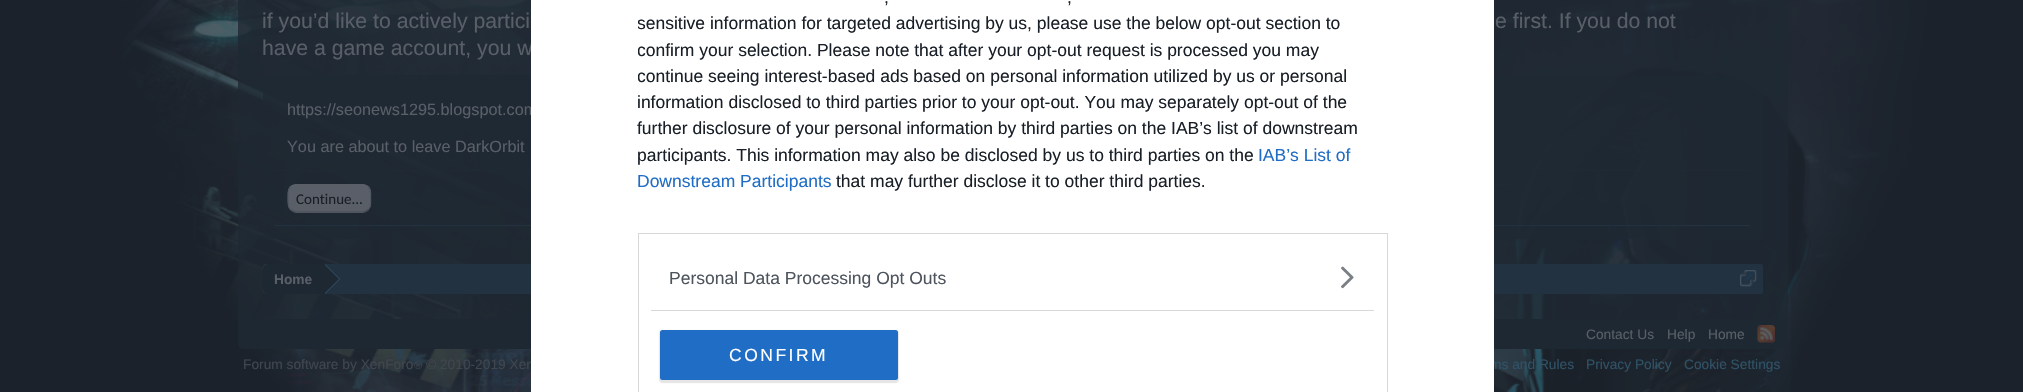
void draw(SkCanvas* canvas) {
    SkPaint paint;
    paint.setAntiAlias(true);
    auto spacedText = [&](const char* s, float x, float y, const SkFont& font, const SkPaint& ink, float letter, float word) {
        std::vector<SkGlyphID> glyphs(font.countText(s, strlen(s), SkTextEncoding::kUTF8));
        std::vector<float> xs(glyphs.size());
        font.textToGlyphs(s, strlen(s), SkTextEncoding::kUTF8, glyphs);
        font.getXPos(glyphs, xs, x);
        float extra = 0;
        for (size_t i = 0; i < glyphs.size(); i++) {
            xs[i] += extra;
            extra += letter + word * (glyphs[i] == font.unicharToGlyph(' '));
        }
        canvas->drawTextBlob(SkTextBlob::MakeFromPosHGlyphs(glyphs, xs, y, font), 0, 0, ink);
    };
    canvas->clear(0xFFFFFFFF);
    canvas->drawImageRect(SkImages::DeferredFromEncodedData(SkData::MakeFromFileName("img1.png")), SkRect::MakeXYWH(0, 0, 2023, 392), SkSamplingOptions());
    paint.setColor(0xCC1E2832);
    canvas->drawRect(SkRect::MakeXYWH(238, 0, 1550, 319), paint);
    SkFont font1(fontMgr->matchFamilyStyle("Liberation Sans", SkFontStyle::Normal()), 21.25f);
    font1.setSubpixel(true);
    paint.setColor(0xFF595E67);
    canvas->drawString("have a game account, you w", 262, 55, font1, paint);
    paint.setColor(0xCC1E2832);
    canvas->drawRoundRect(SkRect::MakeXYWH(263, 75, 1500, 164), 2.5f, 2.5f, paint);
    paint.setColor(0xFF202A35);
    canvas->drawRect(SkRect::MakeXYWH(275, 170, 1475, 1), paint);
    SkFont font2(fontMgr->matchFamilyStyle("Liberation Sans", SkFontStyle::Normal()), 16.25f);
    font2.setSubpixel(true);
    paint.setColor(0xFF595E67);
    canvas->drawString("https://seonews1295.blogspot.com", 287, 115, font2, paint);
    paint.setColor(0xFF233241);
    canvas->drawRect(SkRect::MakeXYWH(275, 225, 1475, 1), paint);
    canvas->drawRoundRect(SkRect::MakeXYWH(263, 264, 1500, 30), 2.5f, 2.5f, paint);
    paint.setColor(0xFF1E2832);
    canvas->drawPath(SkPathBuilder().moveTo(238, 319).lineTo(1788, 319).lineTo(1788, 343).cubicTo(1788, 346.5f, 1785.5f, 349, 1782, 349).lineTo(244, 349).cubicTo(240.5f, 349, 238, 346.5f, 238, 343).close().detach(), paint);
    SkFont font3(fontMgr->matchFamilyStyle("Liberation Sans", SkFontStyle::Normal()), 13.75f);
    font3.setSubpixel(true);
    paint.setColor(0xFF40464E);
    canvas->drawString("© 2010-2019 Xen", 426, 369, font3, paint);
    paint.setColor(0xFF2F5267);
    canvas->drawString("ms and Rules", 1490, 369, font3, paint);
    paint.setColor(0xFFFFFFFF);
    canvas->drawRect(SkRect::MakeXYWH(531, 0, 963, 392), paint);
    SkFont font4(fontMgr->matchFamilyStyle("Liberation Sans", SkFontStyle::Normal()), 17.5f);
    font4.setSubpixel(true);
    paint.setColor(0xFF191F27);
    canvas->drawString(",", 884, 3, font4, paint);
    canvas->drawString(",", 1067, 3, font4, paint);
    canvas->save();
    canvas->clipRect(SkRect::MakeXYWH(638, 0, 750, 214));
    canvas->drawString("sensitive information for targeted advertising by us, please use the below opt-out section to", 637, 29, font4, paint);
    canvas->drawString("confirm your selection. Please note that after your opt-out request is processed you may", 637, 56, font4, paint);
    canvas->drawString("continue seeing interest-based ads based on personal information utilized by us or personal", 637, 82, font4, paint);
    canvas->restore();
    canvas->drawString("information disclosed to third parties prior to your opt-out. You may separately opt-out of the", 637, 108, font4, paint);
    canvas->drawString("further disclosure of your personal information by third parties on the IAB’s list of downstream", 637, 134, font4, paint);
    canvas->drawString("participants. This information may also be disclosed by us to third parties on the", 637, 161, font4, paint);
    paint.setColor(0xFF206DC5);
    canvas->drawString("IAB’s List of", 1258, 161, font4, paint);
    canvas->drawString("Downstream Participants", 637, 187, font4, paint);
    paint.setColor(0xFF191F27);
    canvas->drawString("that may further disclose it to other third parties.", 836, 187, font4, paint);
    paint.setStyle(SkPaint::kStroke_Style);
    paint.setStrokeWidth(1);
    paint.setColor(0xFFD8D8D8);
    canvas->drawRect(SkRect::MakeXYWH(638.5f, 233.5f, 749, 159), paint);
    paint.setStyle(SkPaint::kFill_Style);
    canvas->drawRect(SkRect::MakeXYWH(651, 310, 723, 1), paint);
    paint.setColor(0xFF4D545D);
    canvas->drawString("Personal Data Processing Opt Outs", 669, 284, font4, paint);
    canvas->drawImageRect(SkImages::DeferredFromEncodedData(SkData::MakeFromFileName("img2.png")), SkRect::MakeXYWH(1341, 266, 13, 23), SkSamplingOptions());
    paint.setColor(0x1A000000);
    paint.setMaskFilter(SkMaskFilter::MakeBlur(kNormal_SkBlurStyle, 0.5f));
    canvas->drawRoundRect(SkRect::MakeXYWH(659, 330, 240, 53), 4, 4, paint);
    paint.setMaskFilter(nullptr);
    paint.setColor(0xFF206DC5);
    canvas->drawRoundRect(SkRect::MakeXYWH(660, 330, 238, 50), 2.5f, 2.5f, paint);
    paint.setColor(0xFFFFFFFF);
    spacedText("CONFIRM", 729, 361, font4, paint, 2.5f, 0);
    paint.setColor(0xFF595E67);
    canvas->drawString("if you’d like to actively partici", 262, 28, font1, paint);
    canvas->drawString("e first. If you do not", 1495, 28, font1, paint);
    canvas->drawString("You are about to leave DarkOrbit", 287, 152, font2, paint);
    canvas->drawRoundRect(SkRect::MakeXYWH(288, 184, 83, 29), 9, 9, paint);
    canvas->drawImageRect(SkImages::DeferredFromEncodedData(SkData::MakeFromFileName("img3.png")), SkRect::MakeXYWH(287, 185, 85, 27), SkSamplingOptions());
    paint.setStyle(SkPaint::kStroke_Style);
    paint.setStrokeWidth(1.2f);
    paint.setColor(0xFF595F67);
    canvas->drawPath(SkPathBuilder().moveTo(290.5f, 187).cubicTo(292, 185, 294, 184.5f, 296, 184.5f).lineTo(362.5f, 184.5f).cubicTo(364.5f, 184.5f, 366.5f, 185, 368, 187).detach(), paint);
    paint.setColor(0xFF505662);
    canvas->drawPath(SkPathBuilder().moveTo(368, 187).cubicTo(371.5f, 190, 370.5f, 194, 370.5f, 198).cubicTo(370.5f, 202, 371.5f, 206.5f, 368, 209.5f).detach(), paint);
    paint.setColor(0xFF464C56);
    canvas->drawPath(SkPathBuilder().moveTo(368, 209.5f).cubicTo(366.5f, 211, 364.5f, 212, 362.5f, 212).lineTo(296, 212).cubicTo(294, 212, 292, 211, 290.5f, 209.5f).detach(), paint);
    paint.setColor(0xFF505662);
    canvas->drawPath(SkPathBuilder().moveTo(290.5f, 209.5f).cubicTo(287.5f, 206.5f, 288, 202, 288, 198).cubicTo(288, 194, 287.5f, 190, 290.5f, 187).detach(), paint);
    SkFont font5(fontMgr->matchFamilyStyle("Carlito", SkFontStyle::Normal()), 15);
    font5.setSubpixel(true);
    paint.setStyle(SkPaint::kFill_Style);
    paint.setColor(0xFF191F27);
    canvas->drawString("Continue...", 296, 204, font5, paint);
    canvas->save();
    canvas->clipPath(SkPathBuilder().moveTo(265.5f, 264).lineTo(1760.5f, 264).cubicTo(1762, 264, 1763, 265, 1763, 266.5f).lineTo(1763, 291.5f).cubicTo(1763, 293, 1762, 294, 1760.5f, 294).lineTo(265.5f, 294).cubicTo(264, 294, 263, 293, 263, 291.5f).lineTo(263, 266.5f).cubicTo(263, 265, 264, 264, 265.5f, 264).close().detach(), true);
    paint.setColor(0xFF1E2832);
    canvas->drawPath(SkPathBuilder().moveTo(269, 264).lineTo(325, 264).lineTo(325, 295).lineTo(269, 295).cubicTo(265.5f, 295, 263, 292.5f, 263, 289).lineTo(263, 270).cubicTo(263, 266.5f, 265.5f, 264, 269, 264).close().detach(), paint);
    canvas->restore();
    SkFont font6(fontMgr->matchFamilyStyle("Liberation Sans", SkFontStyle::Bold()), 13.75f);
    font6.setSubpixel(true);
    paint.setColor(0xFF595E67);
    canvas->drawString("Home", 274, 284, font6, paint);
    paint.setColor(0xFF2F5267);
    canvas->drawPath(SkPathBuilder().moveTo(325, 294).lineTo(325, 264).lineTo(340, 279).close().detach(), paint);
    paint.setColor(0xFF1E2832);
    canvas->drawPath(SkPathBuilder().moveTo(324, 294).lineTo(324, 264).lineTo(339, 279).close().detach(), paint);
    canvas->drawImageRect(SkImages::DeferredFromEncodedData(SkData::MakeFromFileName("img4.png")), SkRect::MakeXYWH(1740, 270, 17, 17), SkSamplingOptions());
    paint.setColor(0xFF595E67);
    canvas->drawString("Contact Us", 1586, 339, font3, paint);
    canvas->drawString("Help", 1667, 339, font3, paint);
    canvas->drawString("Home", 1708, 339, font3, paint);
    canvas->drawImageRect(SkImages::DeferredFromEncodedData(SkData::MakeFromFileName("img5.png")), SkRect::MakeXYWH(1757, 325, 18, 18), SkSamplingOptions());
    paint.setColor(0xFF40464E);
    canvas->drawString("Forum software by XenForo", 243, 369, font3, paint);
    SkFont font7(fontMgr->matchFamilyStyle("Liberation Sans", SkFontStyle::Normal()), 11);
    font7.setSubpixel(true);
    canvas->drawString("®", 414, 369, font7, paint);
    paint.setColor(0xFF2F5267);
    canvas->drawString("Privacy Policy", 1586, 369, font3, paint);
    canvas->drawString("Cookie Settings", 1684, 369, font3, paint);
}
